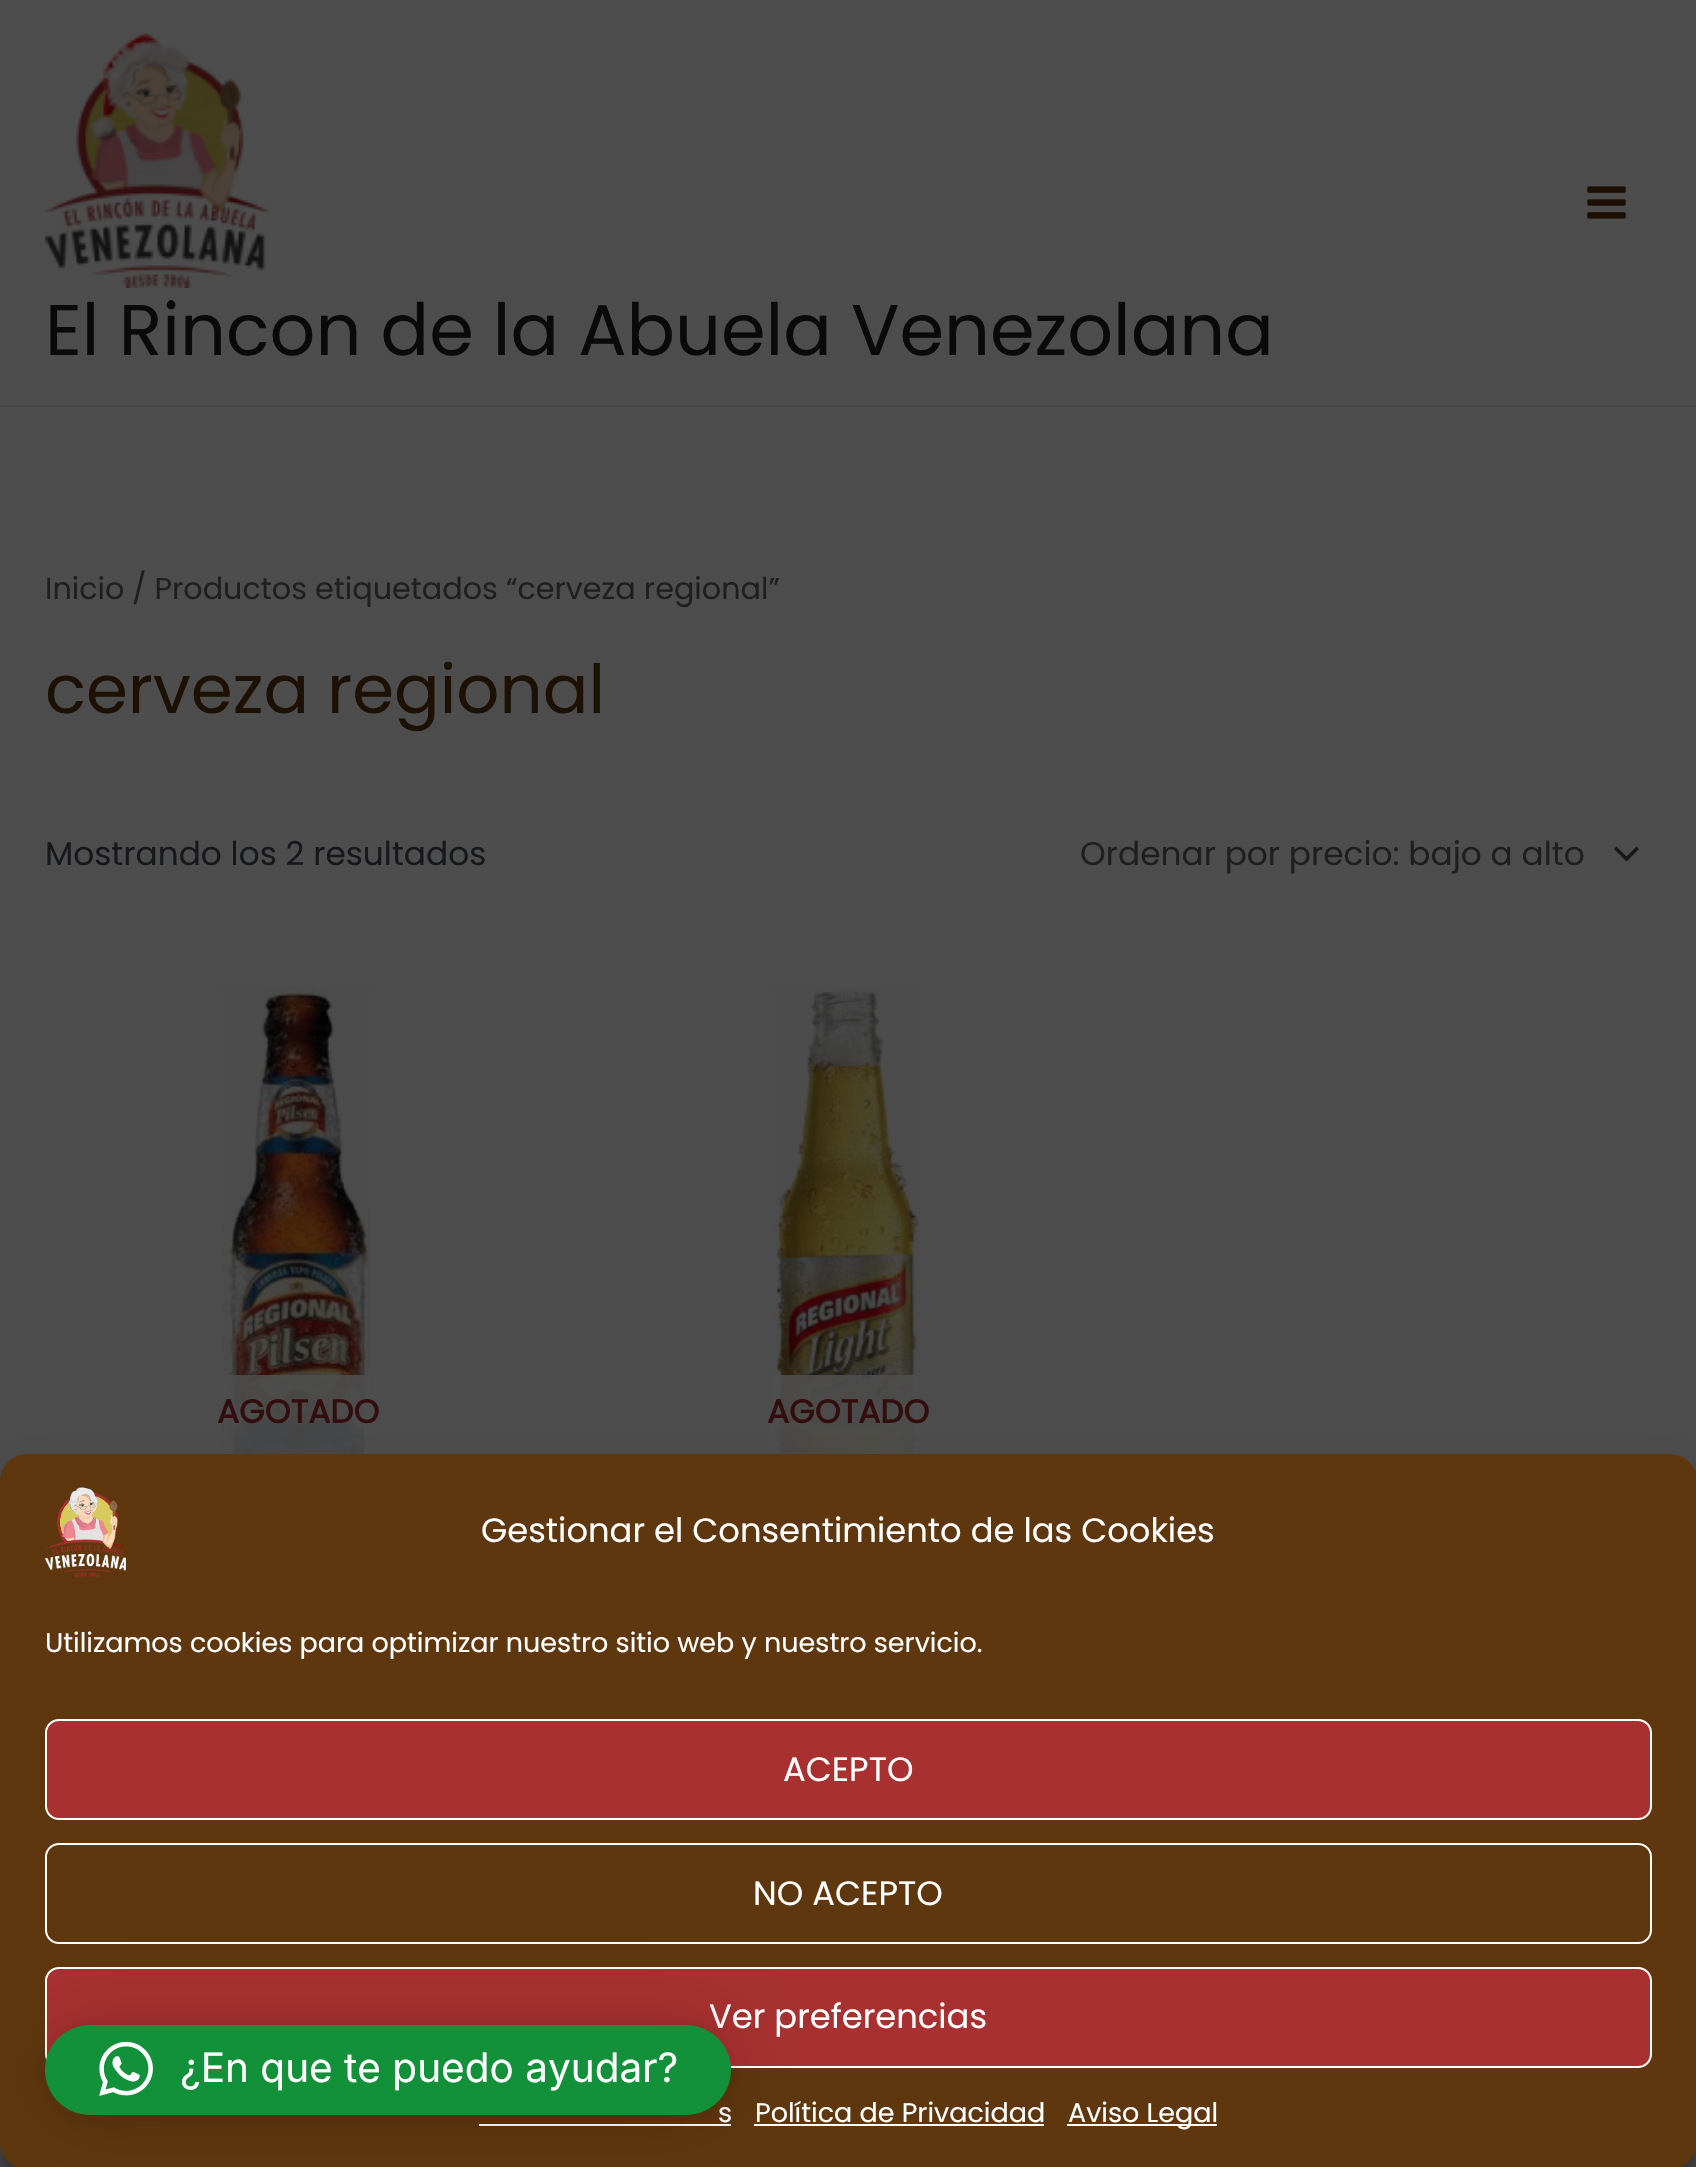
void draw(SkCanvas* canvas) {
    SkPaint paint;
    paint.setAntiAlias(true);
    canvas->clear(0xFF4D4D4D);
    paint.setColor(0xFF464646);
    canvas->drawRect(SkRect::MakeXYWH(0, 405, 1696, 2), paint);
    canvas->drawImageRect(SkImages::DeferredFromEncodedData(SkData::MakeFromFileName("img1.png")), SkRect::MakeXYWH(1587, 186, 39, 33), SkSamplingOptions());
    canvas->drawImageRect(SkImages::DeferredFromEncodedData(SkData::MakeFromFileName("img2.png")), SkRect::MakeXYWH(45, 33, 225, 255), SkSamplingOptions());
    SkFont font1(fontMgr->matchFamilyStyle("Poppins", SkFontStyle::Normal()), 71.8f);
    font1.setSubpixel(true);
    paint.setColor(0xFF0A0A0A);
    canvas->drawString("El Rincon de la Abuela Venezolana", 45, 355, font1, paint);
    SkFont font2(fontMgr->matchFamilyStyle("Poppins", SkFontStyle::Normal()), 30.25f);
    font2.setSubpixel(true);
    paint.setColor(0xFF1F1F1F);
    canvas->drawString("Inicio", 45, 599, font2, paint);
    canvas->drawString("/ Productos etiquetados “cerveza regional”", 132, 599, font2, paint);
    SkFont font3(fontMgr->matchFamilyStyle("Poppins", SkFontStyle::Normal()), 67.5f);
    font3.setSubpixel(true);
    paint.setColor(0xFF1C1104);
    canvas->drawString("cerveza regional", 45, 713, font3, paint);
    SkFont font4(fontMgr->matchFamilyStyle("Poppins", SkFontStyle::Normal()), 32.8f);
    font4.setSubpixel(true);
    paint.setColor(0xFF17181A);
    canvas->drawString("Mostrando los 2 resultados", 45, 865, font4, paint);
    canvas->drawPath(SkPathBuilder().moveTo(1614, 849).lineTo(1626.5f, 861.5f).lineTo(1639, 849).lineTo(1636.5f, 846.5f).lineTo(1626.5f, 856.5f).lineTo(1616.5f, 846.5f).close().detach(), paint);
    paint.setColor(0xFF1F1F1F);
    canvas->drawString("Ordenar por precio: bajo a alto", 1080, 865, font4, paint);
    canvas->drawImageRect(SkImages::DeferredFromEncodedData(SkData::MakeFromFileName("img3.png")), SkRect::MakeXYWH(221, 985, 150, 469), SkSamplingOptions());
    paint.setColor(0xE04D4D4D);
    canvas->drawRect(SkRect::MakeXYWH(224, 1375, 146, 79), paint);
    SkFont font5(fontMgr->matchFamilyStyle("Poppins", SkFontStyle::Bold()), 32.8f);
    font5.setSubpixel(true);
    paint.setColor(0xFF320E0E);
    canvas->drawString("AGOTADO", 217, 1423, font5, paint);
    canvas->drawImageRect(SkImages::DeferredFromEncodedData(SkData::MakeFromFileName("img4.png")), SkRect::MakeXYWH(771, 986, 149, 468), SkSamplingOptions());
    paint.setColor(0xE04D4D4D);
    canvas->drawRect(SkRect::MakeXYWH(771, 1375, 148, 79), paint);
    paint.setColor(0xFF320E0E);
    canvas->drawString("AGOTADO", 767, 1423, font5, paint);
    paint.setColor(0x3B000000);
    paint.setMaskFilter(SkMaskFilter::MakeBlur(kNormal_SkBlurStyle, 7));
    canvas->drawRoundRect(SkRect::MakeXYWH(0, 1467, 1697, 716), 27, 27, paint);
    paint.setMaskFilter(nullptr);
    paint.setColor(0x30000000);
    paint.setMaskFilter(SkMaskFilter::MakeBlur(kNormal_SkBlurStyle, 22.5f));
    canvas->drawRoundRect(SkRect::MakeXYWH(0, 1476, 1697, 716), 27, 27, paint);
    paint.setMaskFilter(nullptr);
    paint.setColor(0xFF5E370E);
    canvas->drawRoundRect(SkRect::MakeXYWH(0, 1454, 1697, 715), 27, 27, paint);
    canvas->drawImageRect(SkImages::DeferredFromEncodedData(SkData::MakeFromFileName("img5.png")), SkRect::MakeXYWH(45, 1487, 83, 91), SkSamplingOptions());
    SkFont font6(fontMgr->matchFamilyStyle("Poppins", SkFontStyle::Normal()), 33.75f);
    font6.setSubpixel(true);
    paint.setColor(0xFFFFFFFF);
    canvas->drawString("Gestionar el Consentimiento de las Cookies", 481, 1542, font6, paint);
    SkFont font7(fontMgr->matchFamilyStyle("Poppins", SkFontStyle::Normal()), 27);
    font7.setSubpixel(true);
    canvas->drawString("Utilizamos cookies para optimizar nuestro sitio web y nuestro servicio.", 45, 1652, font7, paint);
    paint.setColor(0xFFA83030);
    canvas->drawRoundRect(SkRect::MakeXYWH(46, 1720, 1605, 99), 13, 13, paint);
    paint.setStyle(SkPaint::kStroke_Style);
    paint.setStrokeWidth(2);
    paint.setColor(0xFFFFFFFF);
    canvas->drawRoundRect(SkRect::MakeXYWH(46, 1720, 1605, 99), 13, 13, paint);
    paint.setStyle(SkPaint::kFill_Style);
    canvas->drawString("ACEPTO", 783, 1781, font6, paint);
    paint.setStyle(SkPaint::kStroke_Style);
    canvas->drawRoundRect(SkRect::MakeXYWH(46, 1844, 1605, 99), 13, 13, paint);
    paint.setStyle(SkPaint::kFill_Style);
    canvas->drawString("NO ACEPTO", 753, 1905, font6, paint);
    paint.setColor(0xFFA83030);
    canvas->drawRoundRect(SkRect::MakeXYWH(46, 1968, 1605, 99), 13, 13, paint);
    paint.setStyle(SkPaint::kStroke_Style);
    paint.setColor(0xFFFFFFFF);
    canvas->drawRoundRect(SkRect::MakeXYWH(46, 1968, 1605, 99), 13, 13, paint);
    paint.setStyle(SkPaint::kFill_Style);
    canvas->drawString("Ver preferencias", 709, 2028, font6, paint);
    canvas->drawString("s", 718, 2122, font7, paint);
    canvas->drawRect(SkRect::MakeXYWH(479, 2124, 252, 2), paint);
    canvas->drawString("Política de Privacidad", 755, 2122, font7, paint);
    canvas->drawRect(SkRect::MakeXYWH(754, 2124, 290, 2), paint);
    canvas->drawRect(SkRect::MakeXYWH(1067, 2124, 150, 2), paint);
    canvas->drawString("Aviso Legal", 1068, 2122, font7, paint);
    paint.setColor(0x29000000);
    paint.setMaskFilter(SkMaskFilter::MakeBlur(kNormal_SkBlurStyle, 36));
    canvas->drawRoundRect(SkRect::MakeXYWH(45, 2030, 686, 90), 45, 45, paint);
    paint.setMaskFilter(nullptr);
    paint.setColor(0x0F000000);
    paint.setMaskFilter(SkMaskFilter::MakeBlur(kNormal_SkBlurStyle, 7));
    canvas->drawRoundRect(SkRect::MakeXYWH(45, 2027, 686, 90), 45, 45, paint);
    paint.setMaskFilter(nullptr);
    paint.setColor(0xFF12913A);
    canvas->drawRoundRect(SkRect::MakeXYWH(45, 2025, 686, 90), 45, 45, paint);
    canvas->drawImageRect(SkImages::DeferredFromEncodedData(SkData::MakeFromFileName("img6.png")), SkRect::MakeXYWH(99, 2041, 54, 55), SkSamplingOptions());
    SkFont font8(fontMgr->matchFamilyStyle("Inter", SkFontStyle::Normal()), 40.5f);
    font8.setSubpixel(true);
    paint.setColor(0xFFFFFFFF);
    canvas->drawString("¿En que te puedo ayudar?", 180, 2082, font8, paint);
}
